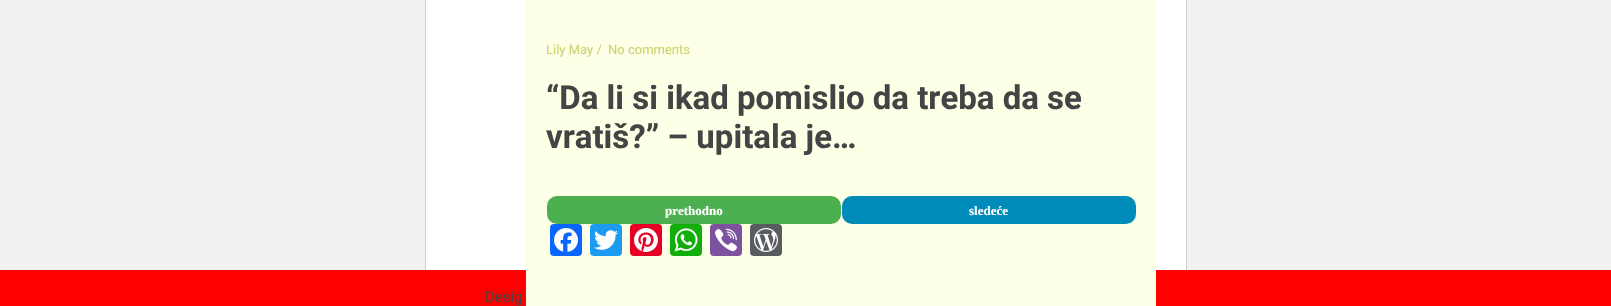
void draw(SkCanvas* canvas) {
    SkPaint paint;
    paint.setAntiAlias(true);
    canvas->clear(0xFFF1F1F1);
    paint.setColor(0xFFFFFFFF);
    canvas->drawRect(SkRect::MakeXYWH(426, 0, 760, 270), paint);
    paint.setStyle(SkPaint::kStroke_Style);
    paint.setStrokeWidth(1);
    paint.setColor(0xFFCCD0D4);
    canvas->drawRect(SkRect::MakeXYWH(425.5f, -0.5f, 761, 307), paint);
    paint.setStyle(SkPaint::kFill_Style);
    paint.setColor(0xFFFF0000);
    canvas->drawRect(SkRect::MakeXYWH(0, 270, 1611, 36), paint);
    paint.setColor(0xFFFDFFE6);
    canvas->drawRect(SkRect::MakeXYWH(526, 0, 630, 306), paint);
    SkFont font1(fontMgr->matchFamilyStyle("Roboto", SkFontStyle::Normal()), 13);
    font1.setSubpixel(true);
    paint.setColor(0xFFCCD470);
    canvas->drawString("Lily May /", 546, 54, font1, paint);
    canvas->drawString("No comments", 608, 54, font1, paint);
    SkFont font2(fontMgr->matchFamilyStyle("Roboto", SkFontStyle::Bold()), 33);
    font2.setSubpixel(true);
    paint.setColor(0xFF444444);
    canvas->drawString("“Da li si ikad pomislio da treba da se", 546, 109, font2, paint);
    canvas->drawString("vratiš?” – upitala je…", 546, 148, font2, paint);
    paint.setColor(0xFF4CAF50);
    canvas->drawRoundRect(SkRect::MakeXYWH(548, 197, 292, 26), 9, 9, paint);
    paint.setStyle(SkPaint::kStroke_Style);
    paint.setStrokeWidth(2);
    canvas->drawRoundRect(SkRect::MakeXYWH(548, 197, 292, 26), 9, 9, paint);
    SkFont font3(fontMgr->matchFamilyStyle("Liberation Serif", SkFontStyle::Bold()), 13);
    font3.setSubpixel(true);
    paint.setStyle(SkPaint::kFill_Style);
    paint.setColor(0xFFFFFFFF);
    canvas->drawString("prethodno", 665, 215, font3, paint);
    paint.setColor(0xFF008CBA);
    canvas->drawRoundRect(SkRect::MakeXYWH(843, 197, 292, 26), 9, 9, paint);
    paint.setStyle(SkPaint::kStroke_Style);
    canvas->drawRoundRect(SkRect::MakeXYWH(843, 197, 292, 26), 9, 9, paint);
    paint.setStyle(SkPaint::kFill_Style);
    paint.setColor(0xFFFFFFFF);
    canvas->drawString("sledeće", 969, 215, font3, paint);
    paint.setColor(0xFF0866FF);
    canvas->drawRoundRect(SkRect::MakeXYWH(550, 224, 32, 32), 4, 4, paint);
    canvas->drawImageRect(SkImages::DeferredFromEncodedData(SkData::MakeFromFileName("img1.png")), SkRect::MakeXYWH(554, 228, 24, 24), SkSamplingOptions());
    paint.setColor(0xFF1D9BF0);
    canvas->drawRoundRect(SkRect::MakeXYWH(590, 224, 32, 32), 4, 4, paint);
    canvas->drawImageRect(SkImages::DeferredFromEncodedData(SkData::MakeFromFileName("img2.png")), SkRect::MakeXYWH(594, 230, 24, 20), SkSamplingOptions());
    paint.setColor(0xFFE60023);
    canvas->drawRoundRect(SkRect::MakeXYWH(630, 224, 32, 32), 4, 4, paint);
    canvas->drawImageRect(SkImages::DeferredFromEncodedData(SkData::MakeFromFileName("img3.png")), SkRect::MakeXYWH(634, 228, 24, 24), SkSamplingOptions());
    paint.setColor(0xFF12AF0A);
    canvas->drawRoundRect(SkRect::MakeXYWH(670, 224, 32, 32), 4, 4, paint);
    canvas->drawImageRect(SkImages::DeferredFromEncodedData(SkData::MakeFromFileName("img4.png")), SkRect::MakeXYWH(674, 228, 24, 24), SkSamplingOptions());
    paint.setColor(0xFF7C529E);
    canvas->drawRoundRect(SkRect::MakeXYWH(710, 224, 32, 32), 4, 4, paint);
    canvas->drawImageRect(SkImages::DeferredFromEncodedData(SkData::MakeFromFileName("img5.png")), SkRect::MakeXYWH(715, 228, 22, 24), SkSamplingOptions());
    paint.setColor(0xFF585C60);
    canvas->drawRoundRect(SkRect::MakeXYWH(750, 224, 32, 32), 4, 4, paint);
    canvas->drawImageRect(SkImages::DeferredFromEncodedData(SkData::MakeFromFileName("img6.png")), SkRect::MakeXYWH(754, 228, 24, 24), SkSamplingOptions());
    SkFont font4(fontMgr->matchFamilyStyle("Roboto", SkFontStyle::Normal()), 15);
    font4.setSubpixel(true);
    paint.setColor(0xFF444444);
    canvas->drawString("Desig", 485, 302, font4, paint);
}
